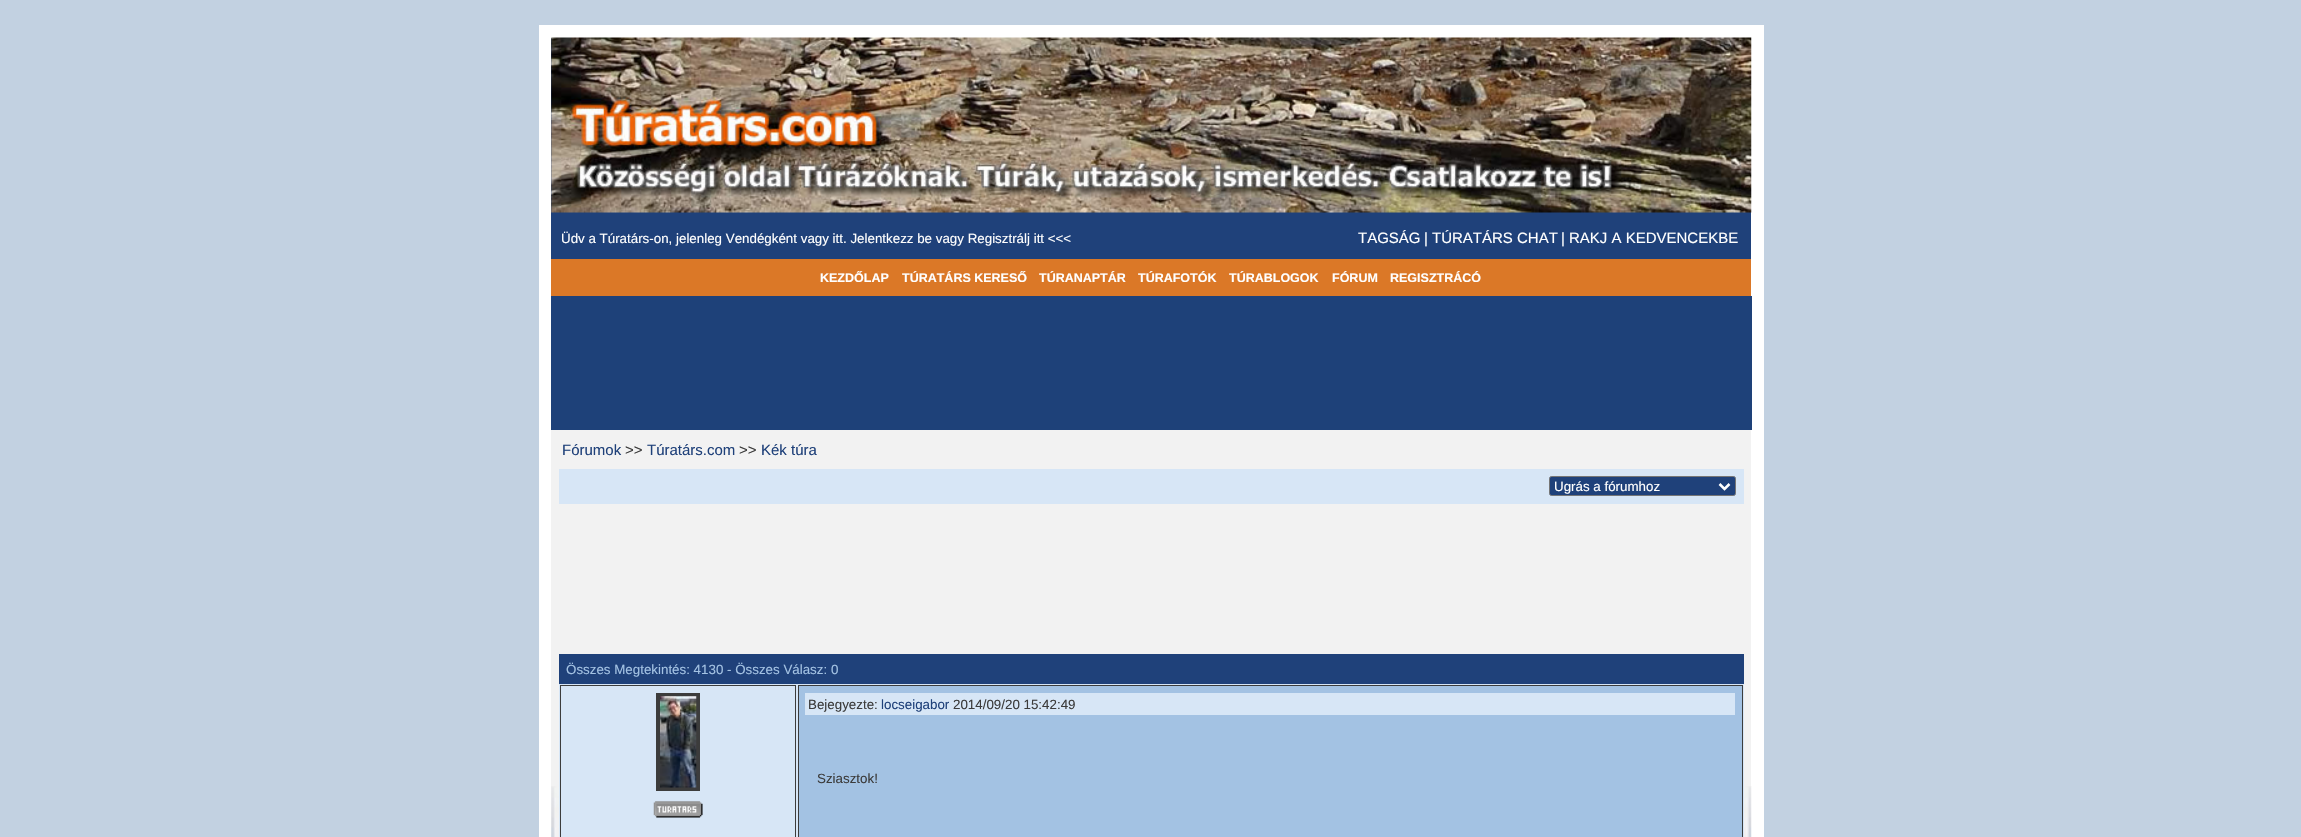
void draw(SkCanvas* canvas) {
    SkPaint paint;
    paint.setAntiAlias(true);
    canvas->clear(0xFFC2D1E1);
    paint.setStyle(SkPaint::kStroke_Style);
    paint.setStrokeWidth(13);
    paint.setColor(0xFFFFFFFF);
    canvas->drawRect(SkRect::MakeXYWH(545.5f, 31.5f, 1212, 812), paint);
    paint.setStyle(SkPaint::kFill_Style);
    paint.setColor(0xFF1F417A);
    canvas->drawRect(SkRect::MakeXYWH(551, 38, 1200, 221), paint);
    canvas->drawImageRect(SkImages::DeferredFromEncodedData(SkData::MakeFromFileName("img1.png")), SkRect::MakeXYWH(551, 37, 1201, 176), SkSamplingOptions());
    SkFont font1(fontMgr->matchFamilyStyle("Liberation Sans", SkFontStyle::Normal()), 13.35f);
    font1.setSubpixel(true);
    paint.setColor(0xFFFFFFFF);
    canvas->drawString("Üdv a Túratárs-on, jelenleg Vendégként vagy itt. Jelentkezz be vagy Regisztrálj itt <<<", 561, 243, font1, paint);
    SkFont font2(fontMgr->matchFamilyStyle("Liberation Sans", SkFontStyle::Normal()), 15);
    font2.setSubpixel(true);
    canvas->drawString("TAGSÁG", 1358, 243, font2, paint);
    canvas->drawString("|", 1424, 243, font2, paint);
    canvas->drawString("TÚRATÁRS CHAT", 1432, 243, font2, paint);
    canvas->drawString("|", 1561, 243, font2, paint);
    canvas->drawString("RAKJ A KEDVENCEKBE", 1569, 243, font2, paint);
    paint.setColor(0xFFDB7827);
    canvas->drawRect(SkRect::MakeXYWH(551, 259, 1200, 37), paint);
    SkFont font3(fontMgr->matchFamilyStyle("Liberation Sans", SkFontStyle::Bold()), 12.5f);
    font3.setSubpixel(true);
    paint.setColor(0xFFFFFFFF);
    canvas->drawString("KEZDŐLAP", 820, 282, font3, paint);
    canvas->drawString("TÚRATÁRS KERESŐ", 902, 282, font3, paint);
    canvas->drawString("TÚRANAPTÁR", 1039, 282, font3, paint);
    canvas->drawString("TÚRAFOTÓK", 1138, 282, font3, paint);
    canvas->drawString("TÚRABLOGOK", 1229, 282, font3, paint);
    canvas->drawString("FÓRUM", 1332, 282, font3, paint);
    canvas->drawString("REGISZTRÁCÓ", 1390, 282, font3, paint);
    paint.setColor(0xFF1E4179);
    canvas->drawRect(SkRect::MakeXYWH(551, 296, 1201, 134), paint);
    paint.setColor(0xFFF2F2F2);
    canvas->drawRect(SkRect::MakeXYWH(551, 430, 1200, 407), paint);
    canvas->drawImageRect(SkImages::DeferredFromEncodedData(SkData::MakeFromFileName("img2.png")), SkRect::MakeXYWH(551, 786, 1201, 51), SkSamplingOptions());
    paint.setColor(0xFF1F417A);
    canvas->drawString("Fórumok", 562, 455, font2, paint);
    paint.setColor(0xFF3C3C3C);
    canvas->drawString(">>", 625, 455, font2, paint);
    paint.setColor(0xFF1F417A);
    canvas->drawString("Túratárs.com", 647, 455, font2, paint);
    paint.setColor(0xFF3C3C3C);
    canvas->drawString(">>", 739, 455, font2, paint);
    paint.setColor(0xFF1F417A);
    canvas->drawString("Kék túra", 761, 455, font2, paint);
    paint.setColor(0xFFD7E6F6);
    canvas->drawRect(SkRect::MakeXYWH(559, 469, 1185, 35), paint);
    paint.setColor(0xFF1F417A);
    canvas->drawRoundRect(SkRect::MakeXYWH(1549.5f, 476.5f, 186, 19), 2, 2, paint);
    paint.setStyle(SkPaint::kStroke_Style);
    paint.setStrokeWidth(1);
    paint.setColor(0xFF767676);
    canvas->drawRoundRect(SkRect::MakeXYWH(1549.5f, 476.5f, 186, 19), 2, 2, paint);
    paint.setStrokeWidth(2.5f);
    paint.setColor(0xFFFFFFFF);
    canvas->drawPath(SkPathBuilder().moveTo(1719.5f, 484).lineTo(1724.5f, 489).lineTo(1729.5f, 484).detach(), paint);
    paint.setStyle(SkPaint::kFill_Style);
    canvas->drawString("Ugrás a fórumhoz", 1554, 491, font1, paint);
    paint.setColor(0xFF1F417A);
    canvas->drawRect(SkRect::MakeXYWH(559, 654, 1185, 30), paint);
    paint.setColor(0xFFA3C2E3);
    canvas->drawString("Összes Megtekintés: 4130 - Összes Válasz: 0", 566, 674, font1, paint);
    paint.setColor(0xFFD7E6F6);
    canvas->drawRect(SkRect::MakeXYWH(559, 684, 1185, 153), paint);
    paint.setStyle(SkPaint::kStroke_Style);
    paint.setStrokeWidth(1);
    paint.setColor(0xFF3C3C3C);
    canvas->drawRect(SkRect::MakeXYWH(560.5f, 685.5f, 235, 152), paint);
    paint.setStrokeWidth(4);
    canvas->drawRect(SkRect::MakeXYWH(658, 695, 40, 94), paint);
    canvas->drawImageRect(SkImages::DeferredFromEncodedData(SkData::MakeFromFileName("img3.png")), SkRect::MakeXYWH(660, 696, 37, 92), SkSamplingOptions());
    canvas->drawImageRect(SkImages::DeferredFromEncodedData(SkData::MakeFromFileName("img4.png")), SkRect::MakeXYWH(653, 801, 50, 17), SkSamplingOptions());
    paint.setStyle(SkPaint::kFill_Style);
    paint.setColor(0xFFA3C2E3);
    canvas->drawRect(SkRect::MakeXYWH(798.5f, 685.5f, 944, 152), paint);
    paint.setStyle(SkPaint::kStroke_Style);
    paint.setStrokeWidth(1);
    paint.setColor(0xFF3C3C3C);
    canvas->drawRect(SkRect::MakeXYWH(798.5f, 685.5f, 944, 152), paint);
    paint.setStyle(SkPaint::kFill_Style);
    paint.setColor(0xFFD7E6F6);
    canvas->drawRect(SkRect::MakeXYWH(805, 693, 930, 22), paint);
    paint.setColor(0xFF3C3C3C);
    canvas->drawString("Bejegyezte:", 808, 709, font1, paint);
    paint.setColor(0xFF1F417A);
    canvas->drawString("locseigabor", 881, 709, font1, paint);
    paint.setColor(0xFF3C3C3C);
    canvas->drawString("2014/09/20 15:42:49", 953, 709, font1, paint);
    canvas->drawString("Sziasztok!", 817, 783, font1, paint);
}
